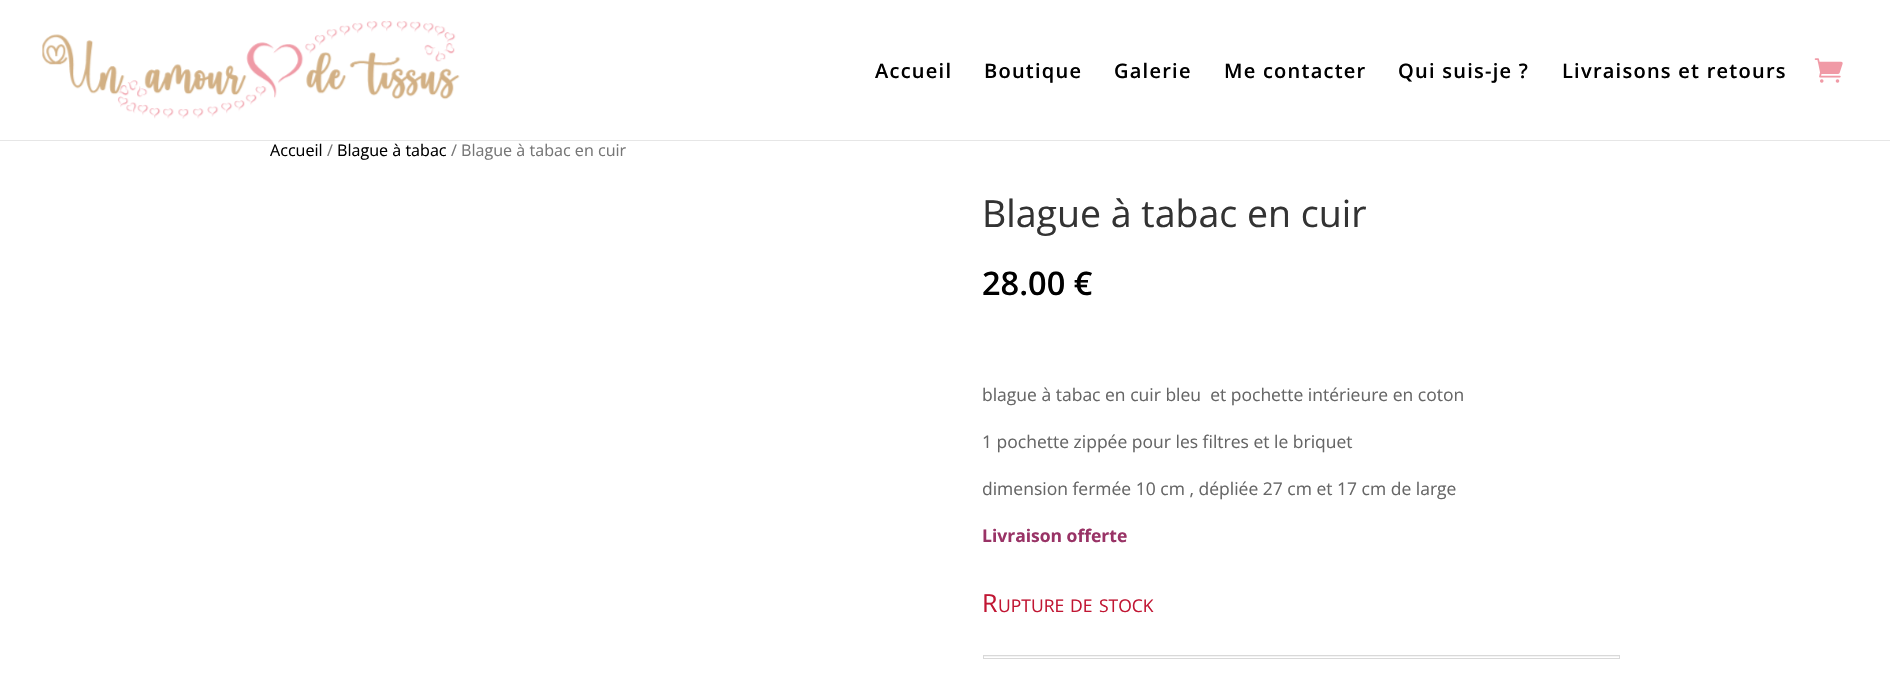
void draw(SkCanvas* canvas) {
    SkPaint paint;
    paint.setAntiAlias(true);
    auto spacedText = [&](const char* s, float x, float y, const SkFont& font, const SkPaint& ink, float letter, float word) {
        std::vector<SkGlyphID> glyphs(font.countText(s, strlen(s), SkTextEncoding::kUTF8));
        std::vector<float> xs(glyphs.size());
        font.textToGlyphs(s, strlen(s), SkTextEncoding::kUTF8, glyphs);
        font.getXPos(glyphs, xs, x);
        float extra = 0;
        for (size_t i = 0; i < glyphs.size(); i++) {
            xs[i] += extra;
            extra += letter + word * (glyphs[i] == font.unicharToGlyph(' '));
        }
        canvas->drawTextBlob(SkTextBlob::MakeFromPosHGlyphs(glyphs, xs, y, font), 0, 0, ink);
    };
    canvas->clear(0xFFFFFFFF);
    paint.setColor(0xFFE6E6E6);
    canvas->drawRect(SkRect::MakeXYWH(0, 140, 1890, 1), paint);
    canvas->drawImageRect(SkImages::DeferredFromEncodedData(SkData::MakeFromFileName("img1.png")), SkRect::MakeXYWH(42, 21, 418, 98), SkSamplingOptions());
    SkFont font1(fontMgr->matchFamilyStyle("Open Sans", SkFontStyle(600, SkFontStyle::kNormal_Width, SkFontStyle::kUpright_Slant)), 20);
    font1.setSubpixel(true);
    paint.setColor(0xFF000000);
    spacedText("Accueil", 875, 78, font1, paint, 1.25f, 0);
    spacedText("Boutique", 984, 78, font1, paint, 1.25f, 0);
    spacedText("Galerie", 1114, 78, font1, paint, 1.25f, 0);
    spacedText("Me contacter", 1224, 78, font1, paint, 1.25f, 0);
    spacedText("Qui suis-je ?", 1398, 78, font1, paint, 1.25f, 0);
    spacedText("Livraisons et retours", 1562, 78, font1, paint, 1.25f, 0);
    canvas->drawImageRect(SkImages::DeferredFromEncodedData(SkData::MakeFromFileName("img2.png")), SkRect::MakeXYWH(1814, 58, 29, 25), SkSamplingOptions());
    SkFont font2(fontMgr->matchFamilyStyle("Open Sans", SkFontStyle::Normal()), 16.1f);
    font2.setSubpixel(true);
    canvas->drawString("Accueil", 270, 156, font2, paint);
    paint.setColor(0xFF767676);
    canvas->drawString("/", 327, 156, font2, paint);
    paint.setColor(0xFF000000);
    canvas->drawString("Blague à tabac", 337, 156, font2, paint);
    paint.setColor(0xFF767676);
    canvas->drawString("/ Blague à tabac en cuir", 451, 156, font2, paint);
    SkFont font3(fontMgr->matchFamilyStyle("Open Sans", SkFontStyle::Normal()), 37.5f);
    font3.setSubpixel(true);
    paint.setColor(0xFF333333);
    canvas->drawString("Blague à tabac en cuir", 982, 227, font3, paint);
    SkFont font4(fontMgr->matchFamilyStyle("Open Sans", SkFontStyle(600, SkFontStyle::kNormal_Width, SkFontStyle::kUpright_Slant)), 32.5f);
    font4.setSubpixel(true);
    paint.setColor(0xFF000000);
    canvas->drawString("28.00 €", 982, 295, font4, paint);
    SkFont font5(fontMgr->matchFamilyStyle("Open Sans", SkFontStyle::Normal()), 17.5f);
    font5.setSubpixel(true);
    paint.setColor(0xFF666666);
    canvas->drawString("blague à tabac en cuir bleu  et pochette intérieure en coton", 982, 401, font5, paint);
    canvas->drawString("1 pochette zippée pour les filtres et le briquet", 982, 448, font5, paint);
    canvas->drawString("dimension fermée 10 cm , dépliée 27 cm et 17 cm de large", 982, 495, font5, paint);
    SkFont font6(fontMgr->matchFamilyStyle("Open Sans", SkFontStyle::Bold()), 17.5f);
    font6.setSubpixel(true);
    paint.setColor(0xFF993366);
    canvas->drawString("Livraison offerte", 982, 542, font6, paint);
    SkFont font7(fontMgr->matchFamilyStyle("Open Sans", SkFontStyle::Normal()), 25);
    font7.setSubpixel(true);
    paint.setColor(0xFFC11633);
    canvas->drawString("R", 982, 612, font7, paint);
    canvas->drawString("UPTURE", 998, 612, font5, paint);
    canvas->drawString("DE", 1070, 612, font5, paint);
    canvas->drawString("STOCK", 1099, 612, font5, paint);
    paint.setStyle(SkPaint::kStroke_Style);
    paint.setStrokeWidth(1);
    paint.setColor(0xFFD9D9D9);
    canvas->drawRect(SkRect::MakeXYWH(983.5f, 655.5f, 636, 3), paint);
    paint.setStyle(SkPaint::kFill_Style);
    paint.setColor(0xFFF4F4F4);
    canvas->drawRect(SkRect::MakeXYWH(984, 656, 635, 1), paint);
}
